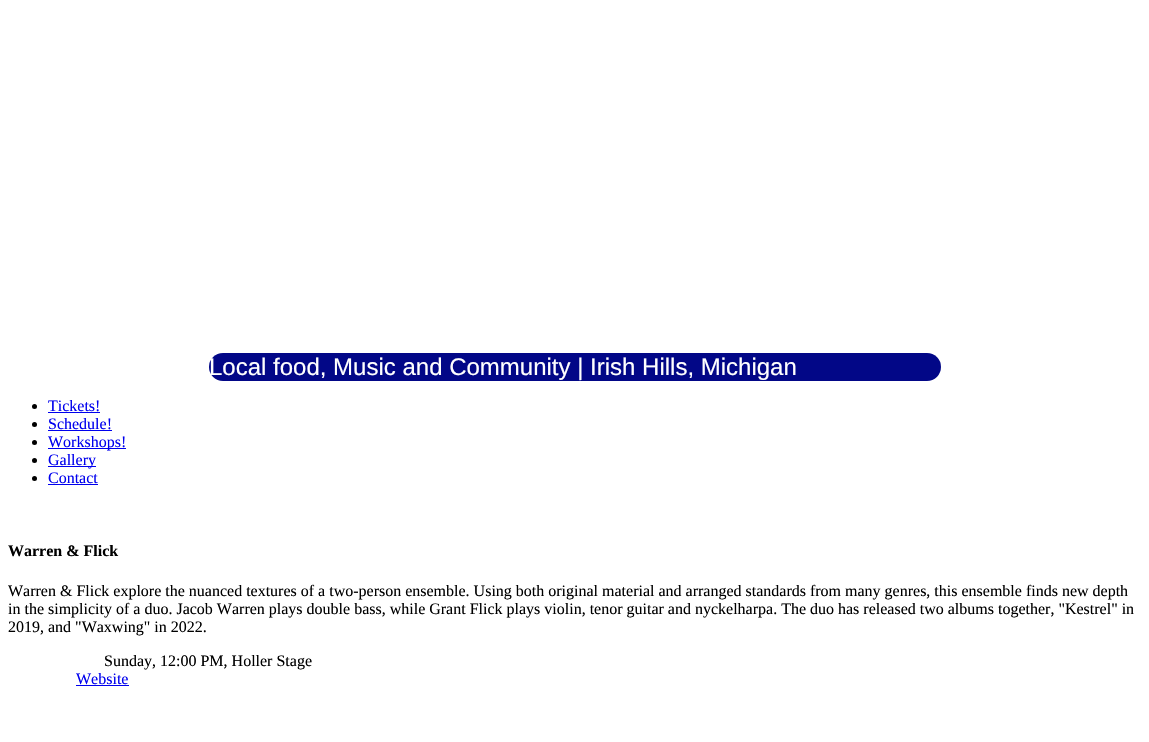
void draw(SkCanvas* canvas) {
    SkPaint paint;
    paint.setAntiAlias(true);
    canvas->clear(0xFFFFFFFF);
    paint.setColor(0xFF020787);
    canvas->drawRoundRect(SkRect::MakeXYWH(209, 353, 732, 28), 14, 14, paint);
    SkFont font1(fontMgr->matchFamilyStyle("Liberation Sans", SkFontStyle::Normal()), 24);
    font1.setSubpixel(true);
    paint.setColor(0xFFFFFFFF);
    canvas->drawString("Local food, Music and Community | Irish Hills, Michigan", 209, 375, font1, paint);
    paint.setColor(0xFF000000);
    canvas->drawCircle(34.5f, 406.5f, 2.5f, paint);
    SkFont font2(fontMgr->matchFamilyStyle("Liberation Serif", SkFontStyle::Normal()), 16);
    font2.setSubpixel(true);
    paint.setColor(0xFF0000EE);
    canvas->drawString("Tickets!", 48, 411, font2, paint);
    canvas->drawRect(SkRect::MakeXYWH(48, 412, 52, 1), paint);
    paint.setColor(0xFF000000);
    canvas->drawCircle(34.5f, 424.5f, 2.5f, paint);
    paint.setColor(0xFF0000EE);
    canvas->drawString("Schedule!", 48, 429, font2, paint);
    canvas->drawRect(SkRect::MakeXYWH(48, 430, 64, 1), paint);
    paint.setColor(0xFF000000);
    canvas->drawCircle(34.5f, 442.5f, 2.5f, paint);
    paint.setColor(0xFF0000EE);
    canvas->drawRect(SkRect::MakeXYWH(48, 448, 78, 1), paint);
    canvas->drawString("Workshops!", 48, 447, font2, paint);
    paint.setColor(0xFF000000);
    canvas->drawCircle(34.5f, 460.5f, 2.5f, paint);
    paint.setColor(0xFF0000EE);
    canvas->drawRect(SkRect::MakeXYWH(48, 466, 48, 1), paint);
    canvas->drawString("Gallery", 48, 465, font2, paint);
    paint.setColor(0xFF000000);
    canvas->drawCircle(34.5f, 478.5f, 2.5f, paint);
    paint.setColor(0xFF0000EE);
    canvas->drawString("Contact", 48, 483, font2, paint);
    canvas->drawRect(SkRect::MakeXYWH(48, 484, 50, 1), paint);
    SkFont font3(fontMgr->matchFamilyStyle("Liberation Serif", SkFontStyle::Bold()), 16);
    font3.setSubpixel(true);
    paint.setColor(0xFF000000);
    canvas->drawString("Warren & Flick", 8, 556, font3, paint);
    canvas->drawString("Warren & Flick explore the nuanced textures of a two-person ensemble. Using both original material and arranged standards from many genres, this ensemble finds new depth", 8, 596, font2, paint);
    canvas->drawString("in the simplicity of a duo. Jacob Warren plays double bass, while Grant Flick plays violin, tenor guitar and nyckelharpa. The duo has released two albums together, \"Kestrel\" in", 8, 614, font2, paint);
    canvas->drawString("2019, and \"Waxwing\" in 2022.", 8, 632, font2, paint);
    canvas->drawString("Sunday, 12:00 PM, Holler Stage", 104, 666, font2, paint);
    paint.setColor(0xFF0000EE);
    canvas->drawString("Website", 76, 684, font2, paint);
    canvas->drawRect(SkRect::MakeXYWH(76, 685, 53, 1), paint);
}
